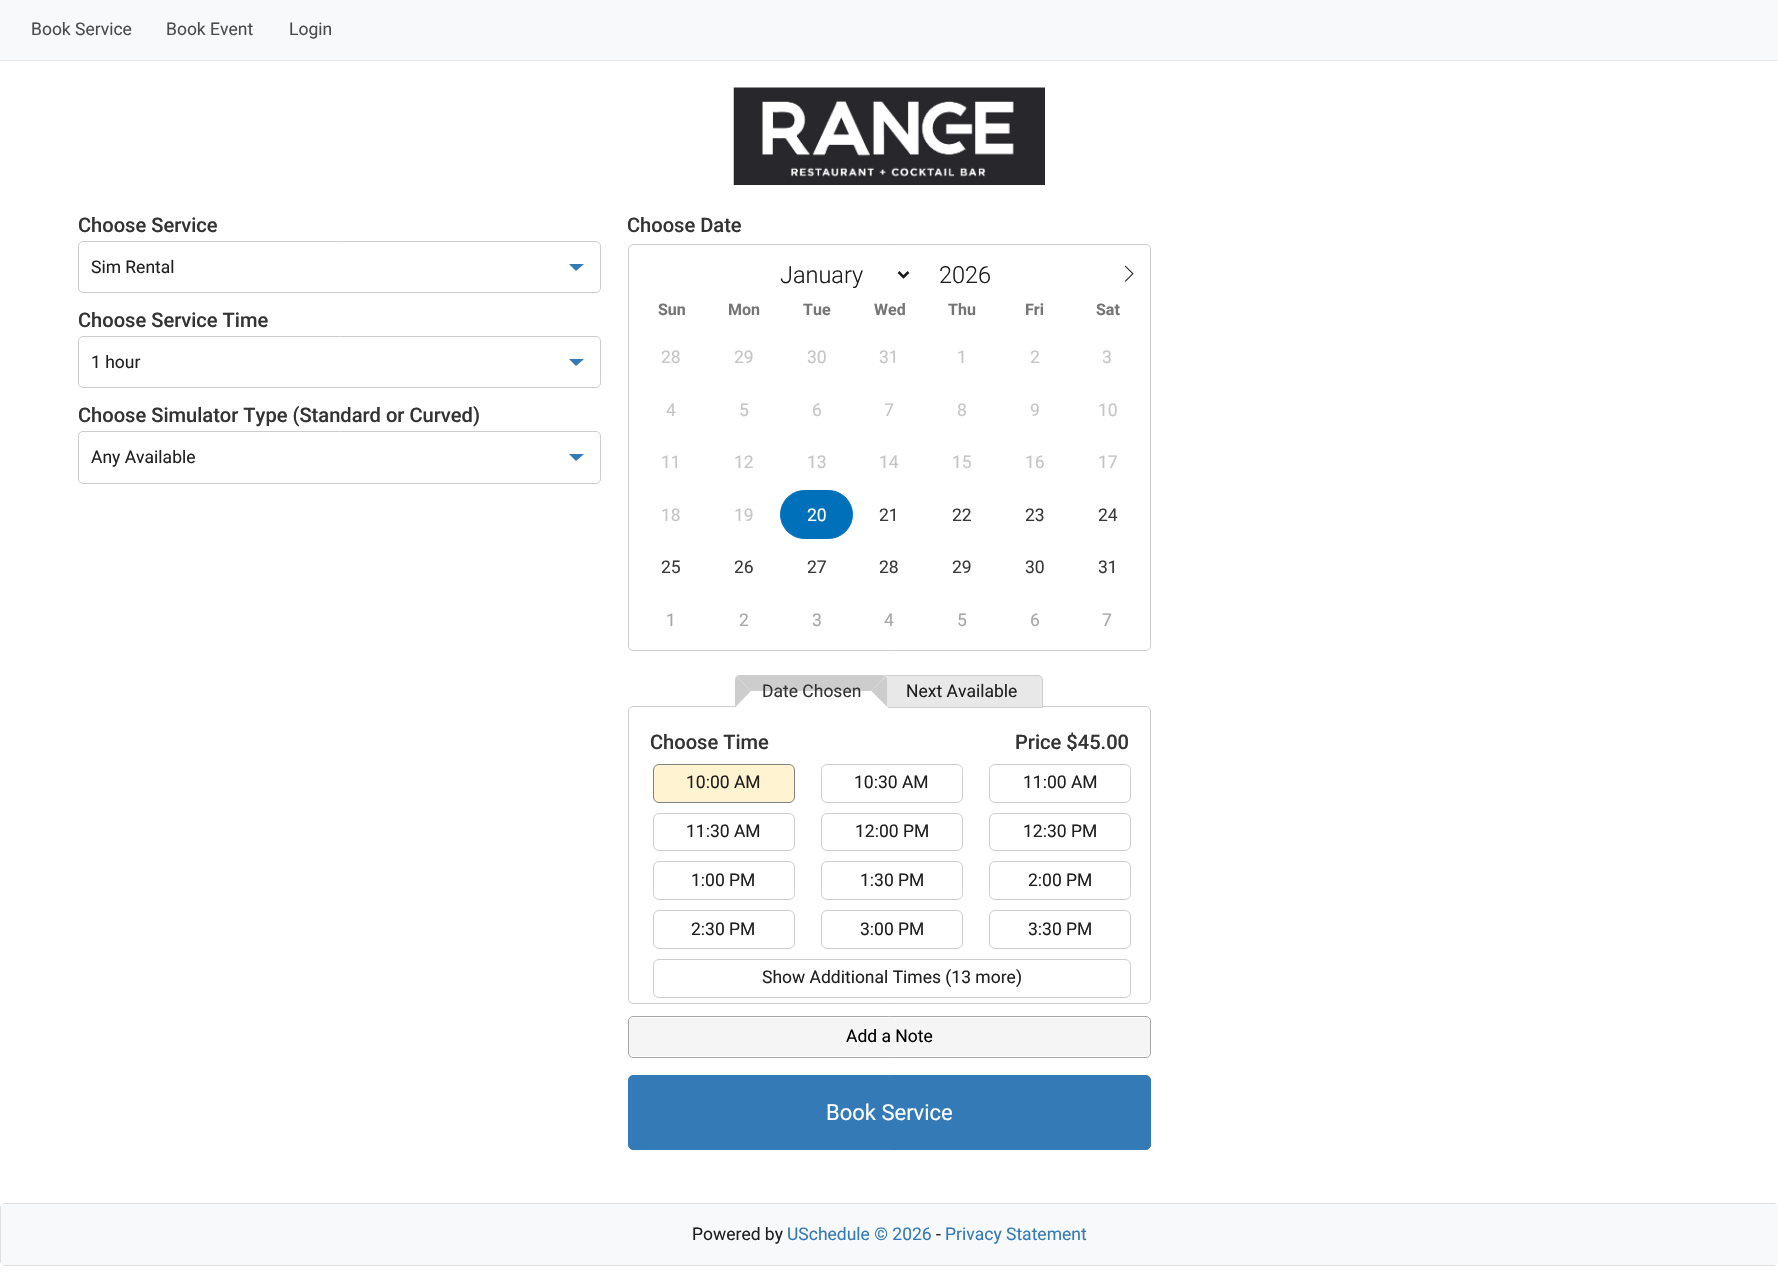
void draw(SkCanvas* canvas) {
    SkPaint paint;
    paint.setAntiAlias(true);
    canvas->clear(0xFFFFFFFF);
    paint.setColor(0xFFF8F9FA);
    canvas->drawRect(SkRect::MakeXYWH(0, 0, 1778, 60), paint);
    paint.setColor(0xFFE7E7E7);
    canvas->drawRect(SkRect::MakeXYWH(0, 60, 1778, 1), paint);
    SkFont font1(fontMgr->matchFamilyStyle("Roboto", SkFontStyle::Normal()), 17.5f);
    font1.setSubpixel(true);
    paint.setColor(0xFF4A4B4B);
    canvas->drawString("Book Service", 31, 35, font1, paint);
    canvas->drawString("Book Event", 166, 35, font1, paint);
    canvas->drawString("Login", 289, 35, font1, paint);
    canvas->drawImageRect(SkImages::DeferredFromEncodedData(SkData::MakeFromFileName("img1.png")), SkRect::MakeXYWH(733, 87, 312, 98), SkSamplingOptions());
    SkFont font2(fontMgr->matchFamilyStyle("Roboto", SkFontStyle(500, SkFontStyle::kNormal_Width, SkFontStyle::kUpright_Slant)), 20.1f);
    font2.setSubpixel(true);
    paint.setColor(0xFF333333);
    canvas->drawString("Choose Service", 78, 232, font2, paint);
    paint.setStyle(SkPaint::kStroke_Style);
    paint.setStrokeWidth(1);
    paint.setColor(0xFFCDCDCD);
    canvas->drawRoundRect(SkRect::MakeXYWH(78.5f, 241.5f, 522, 51), 4.5f, 4.5f, paint);
    paint.setStyle(SkPaint::kFill_Style);
    paint.setColor(0xFF202020);
    canvas->drawString("Sim Rental", 91, 273, font1, paint);
    paint.setColor(0xFF337AB7);
    canvas->drawPath(SkPathBuilder().moveTo(569, 264).lineTo(584, 264).lineTo(576, 271).close().detach(), paint);
    paint.setColor(0xFF333333);
    canvas->drawString("Choose Service Time", 78, 327, font2, paint);
    paint.setStyle(SkPaint::kStroke_Style);
    paint.setColor(0xFFCDCDCD);
    canvas->drawRoundRect(SkRect::MakeXYWH(78.5f, 336.5f, 522, 51), 4.5f, 4.5f, paint);
    paint.setStyle(SkPaint::kFill_Style);
    paint.setColor(0xFF202020);
    canvas->drawString("1 hour", 91, 368, font1, paint);
    paint.setColor(0xFF337AB7);
    canvas->drawPath(SkPathBuilder().moveTo(569, 359).lineTo(584, 359).lineTo(576, 366).close().detach(), paint);
    paint.setColor(0xFF333333);
    canvas->drawString("Choose Simulator Type (Standard or Curved)", 78, 422, font2, paint);
    paint.setStyle(SkPaint::kStroke_Style);
    paint.setColor(0xFFCDCDCD);
    canvas->drawRoundRect(SkRect::MakeXYWH(78.5f, 431.5f, 522, 52), 4.5f, 4.5f, paint);
    paint.setStyle(SkPaint::kFill_Style);
    paint.setColor(0xFF202020);
    canvas->drawString("Any Available", 91, 463, font1, paint);
    paint.setColor(0xFF337AB7);
    canvas->drawPath(SkPathBuilder().moveTo(569, 454).lineTo(584, 454).lineTo(576, 461).close().detach(), paint);
    paint.setColor(0xFF333333);
    canvas->drawString("Choose Date", 627, 232, font2, paint);
    paint.setStyle(SkPaint::kStroke_Style);
    paint.setColor(0xFFCDCDCD);
    canvas->drawRoundRect(SkRect::MakeXYWH(628.5f, 244.5f, 522, 406), 4.5f, 4.5f, paint);
    paint.setStrokeWidth(2.5f);
    paint.setColor(0xFF1A1A1A);
    canvas->drawPath(SkPathBuilder().moveTo(898.5f, 272).lineTo(903.5f, 277).lineTo(908.5f, 272).detach(), paint);
    SkFont font3(fontMgr->matchFamilyStyle("Roboto", SkFontStyle(300, SkFontStyle::kNormal_Width, SkFontStyle::kUpright_Slant)), 23.5f);
    font3.setSubpixel(true);
    paint.setStyle(SkPaint::kFill_Style);
    canvas->drawString("January", 780, 283, font3, paint);
    canvas->drawString("2026", 939, 283, font3, paint);
    canvas->drawImageRect(SkImages::DeferredFromEncodedData(SkData::MakeFromFileName("img2.png")), SkRect::MakeXYWH(1124, 265, 10, 17), SkSamplingOptions());
    SkFont font4(fontMgr->matchFamilyStyle("Roboto", SkFontStyle::Bold()), 16);
    font4.setSubpixel(true);
    paint.setColor(0xFF757575);
    canvas->drawString("Sun", 658, 315, font4, paint);
    canvas->drawString("Mon", 728, 315, font4, paint);
    canvas->drawString("Tue", 803, 315, font4, paint);
    canvas->drawString("Wed", 874, 315, font4, paint);
    canvas->drawString("Thu", 948, 315, font4, paint);
    canvas->drawString("Fri", 1025, 315, font4, paint);
    canvas->drawString("Sat", 1096, 315, font4, paint);
    paint.setColor(0xFFC5C5C5);
    canvas->drawString("28", 661, 363, font1, paint);
    canvas->drawString("29", 734, 363, font1, paint);
    canvas->drawString("30", 807, 363, font1, paint);
    canvas->drawString("31", 879, 363, font1, paint);
    canvas->drawString("1", 957, 363, font1, paint);
    canvas->drawString("2", 1030, 363, font1, paint);
    canvas->drawString("3", 1102, 363, font1, paint);
    canvas->drawString("4", 666, 416, font1, paint);
    canvas->drawString("5", 739, 416, font1, paint);
    canvas->drawString("6", 812, 416, font1, paint);
    canvas->drawString("7", 884, 416, font1, paint);
    canvas->drawString("8", 957, 416, font1, paint);
    canvas->drawString("9", 1030, 416, font1, paint);
    canvas->drawString("10", 1098, 416, font1, paint);
    canvas->drawString("11", 661, 468, font1, paint);
    canvas->drawString("12", 734, 468, font1, paint);
    canvas->drawString("13", 807, 468, font1, paint);
    canvas->drawString("14", 879, 468, font1, paint);
    canvas->drawString("15", 952, 468, font1, paint);
    canvas->drawString("16", 1025, 468, font1, paint);
    canvas->drawString("17", 1098, 468, font1, paint);
    canvas->drawString("18", 661, 521, font1, paint);
    canvas->drawString("19", 734, 521, font1, paint);
    paint.setColor(0xFF0070BA);
    canvas->drawRoundRect(SkRect::MakeXYWH(780.5f, 490.5f, 72, 48), 24, 24, paint);
    paint.setStyle(SkPaint::kStroke_Style);
    paint.setStrokeWidth(1);
    canvas->drawRoundRect(SkRect::MakeXYWH(780.5f, 490.5f, 72, 48), 24, 24, paint);
    paint.setStyle(SkPaint::kFill_Style);
    paint.setColor(0xFFFFFFFF);
    canvas->drawString("20", 807, 521, font1, paint);
    paint.setColor(0xFF393939);
    canvas->drawString("21", 879, 521, font1, paint);
    canvas->drawString("22", 952, 521, font1, paint);
    canvas->drawString("23", 1025, 521, font1, paint);
    canvas->drawString("24", 1098, 521, font1, paint);
    canvas->drawString("25", 661, 573, font1, paint);
    canvas->drawString("26", 734, 573, font1, paint);
    canvas->drawString("27", 807, 573, font1, paint);
    canvas->drawString("28", 879, 573, font1, paint);
    canvas->drawString("29", 952, 573, font1, paint);
    canvas->drawString("30", 1025, 573, font1, paint);
    canvas->drawString("31", 1098, 573, font1, paint);
    paint.setColor(0xFFA5A5A5);
    canvas->drawString("1", 666, 626, font1, paint);
    canvas->drawString("2", 739, 626, font1, paint);
    canvas->drawString("3", 812, 626, font1, paint);
    canvas->drawString("4", 884, 626, font1, paint);
    canvas->drawString("5", 957, 626, font1, paint);
    canvas->drawString("6", 1030, 626, font1, paint);
    canvas->drawString("7", 1102, 626, font1, paint);
    paint.setStyle(SkPaint::kStroke_Style);
    paint.setColor(0xFFCDCDCD);
    canvas->drawRoundRect(SkRect::MakeXYWH(628.5f, 706.5f, 522, 297), 4.5f, 4.5f, paint);
    paint.setStyle(SkPaint::kFill_Style);
    paint.setColor(0xFFE8E8E8);
    canvas->drawPath(SkPathBuilder().moveTo(884, 675.5f).lineTo(1038, 675.5f).cubicTo(1040.5f, 675.5f, 1042.5f, 677.5f, 1042.5f, 680).lineTo(1042.5f, 707.5f).lineTo(879.5f, 707.5f).lineTo(879.5f, 680).cubicTo(879.5f, 677.5f, 881.5f, 675.5f, 884, 675.5f).close().detach(), paint);
    paint.setStyle(SkPaint::kStroke_Style);
    paint.setColor(0xFFCDCDCD);
    canvas->drawPath(SkPathBuilder().moveTo(884, 675.5f).lineTo(1038, 675.5f).cubicTo(1040.5f, 675.5f, 1042.5f, 677.5f, 1042.5f, 680).lineTo(1042.5f, 707.5f).lineTo(879.5f, 707.5f).lineTo(879.5f, 680).cubicTo(879.5f, 677.5f, 881.5f, 675.5f, 884, 675.5f).close().detach(), paint);
    paint.setStyle(SkPaint::kFill_Style);
    paint.setColor(0xFFFFFFFF);
    canvas->drawPath(SkPathBuilder().moveTo(740, 675).lineTo(883, 675).cubicTo(886, 675, 888, 677, 888, 680).lineTo(888, 708).lineTo(735, 708).lineTo(735, 680).cubicTo(735, 677, 737, 675, 740, 675).close().detach(), paint);
    paint.setColor(0xFFCDCDCD);
    canvas->drawPath(SkPathBuilder().moveTo(740, 675).lineTo(882, 675).cubicTo(884, 675, 885, 676, 886, 676).lineTo(871, 691).lineTo(751, 691).lineTo(736, 676).cubicTo(737, 676, 738, 675, 740, 675).close().detach(), paint);
    canvas->drawPath(SkPathBuilder().moveTo(886, 676.5f).lineTo(871, 691).lineTo(887.5f, 707.5f).lineTo(887.5f, 678).close().detach(), paint);
    paint.setColor(0xFFFFFFFF);
    canvas->drawPath(SkPathBuilder().moveTo(888, 708).lineTo(871, 691).lineTo(751, 691).lineTo(735, 708).close().detach(), paint);
    paint.setColor(0xFFCDCDCD);
    canvas->drawPath(SkPathBuilder().moveTo(735, 707.5f).lineTo(751, 691).lineTo(736.5f, 676.5f).cubicTo(735.5f, 677, 735, 678.5f, 735, 680).close().detach(), paint);
    paint.setColor(0xFF333333);
    canvas->drawString("Date Chosen", 762, 697, font1, paint);
    paint.setColor(0xFF202020);
    canvas->drawString("Next Available", 906, 697, font1, paint);
    paint.setColor(0xFF333333);
    canvas->drawString("Choose Time", 650, 749, font2, paint);
    canvas->drawString("Price $45.00", 1015, 749, font2, paint);
    paint.setColor(0xFFFFF3D1);
    canvas->drawRoundRect(SkRect::MakeXYWH(653.5f, 764.5f, 141, 38), 5.5f, 5.5f, paint);
    paint.setStyle(SkPaint::kStroke_Style);
    paint.setColor(0xFF808080);
    canvas->drawRoundRect(SkRect::MakeXYWH(653.5f, 764.5f, 141, 38), 5.5f, 5.5f, paint);
    paint.setStyle(SkPaint::kFill_Style);
    paint.setColor(0xFF202020);
    canvas->drawString("10:00 AM", 686, 788, font1, paint);
    paint.setStyle(SkPaint::kStroke_Style);
    paint.setColor(0xFFCDCDCD);
    canvas->drawRoundRect(SkRect::MakeXYWH(821.5f, 764.5f, 141, 38), 5.5f, 5.5f, paint);
    paint.setStyle(SkPaint::kFill_Style);
    paint.setColor(0xFF202020);
    canvas->drawString("10:30 AM", 854, 788, font1, paint);
    paint.setStyle(SkPaint::kStroke_Style);
    paint.setColor(0xFFCDCDCD);
    canvas->drawRoundRect(SkRect::MakeXYWH(989.5f, 764.5f, 141, 38), 5.5f, 5.5f, paint);
    paint.setStyle(SkPaint::kFill_Style);
    paint.setColor(0xFF202020);
    canvas->drawString("11:00 AM", 1023, 788, font1, paint);
    paint.setStyle(SkPaint::kStroke_Style);
    paint.setColor(0xFFCDCDCD);
    canvas->drawRoundRect(SkRect::MakeXYWH(653.5f, 813.5f, 141, 37), 5.5f, 5.5f, paint);
    paint.setStyle(SkPaint::kFill_Style);
    paint.setColor(0xFF202020);
    canvas->drawString("11:30 AM", 686, 837, font1, paint);
    paint.setStyle(SkPaint::kStroke_Style);
    paint.setColor(0xFFCDCDCD);
    canvas->drawRoundRect(SkRect::MakeXYWH(821.5f, 813.5f, 141, 37), 5.5f, 5.5f, paint);
    paint.setStyle(SkPaint::kFill_Style);
    paint.setColor(0xFF202020);
    canvas->drawString("12:00 PM", 855, 837, font1, paint);
    paint.setStyle(SkPaint::kStroke_Style);
    paint.setColor(0xFFCDCDCD);
    canvas->drawRoundRect(SkRect::MakeXYWH(989.5f, 813.5f, 141, 37), 5.5f, 5.5f, paint);
    paint.setStyle(SkPaint::kFill_Style);
    paint.setColor(0xFF202020);
    canvas->drawString("12:30 PM", 1023, 837, font1, paint);
    paint.setStyle(SkPaint::kStroke_Style);
    paint.setColor(0xFFCDCDCD);
    canvas->drawRoundRect(SkRect::MakeXYWH(653.5f, 861.5f, 141, 38), 5.5f, 5.5f, paint);
    paint.setStyle(SkPaint::kFill_Style);
    paint.setColor(0xFF202020);
    canvas->drawString("1:00 PM", 691, 886, font1, paint);
    paint.setStyle(SkPaint::kStroke_Style);
    paint.setColor(0xFFCDCDCD);
    canvas->drawRoundRect(SkRect::MakeXYWH(821.5f, 861.5f, 141, 38), 5.5f, 5.5f, paint);
    paint.setStyle(SkPaint::kFill_Style);
    paint.setColor(0xFF202020);
    canvas->drawString("1:30 PM", 860, 886, font1, paint);
    paint.setStyle(SkPaint::kStroke_Style);
    paint.setColor(0xFFCDCDCD);
    canvas->drawRoundRect(SkRect::MakeXYWH(989.5f, 861.5f, 141, 38), 5.5f, 5.5f, paint);
    paint.setStyle(SkPaint::kFill_Style);
    paint.setColor(0xFF202020);
    canvas->drawString("2:00 PM", 1028, 886, font1, paint);
    paint.setStyle(SkPaint::kStroke_Style);
    paint.setColor(0xFFCDCDCD);
    canvas->drawRoundRect(SkRect::MakeXYWH(653.5f, 910.5f, 141, 38), 5.5f, 5.5f, paint);
    paint.setStyle(SkPaint::kFill_Style);
    paint.setColor(0xFF202020);
    canvas->drawString("2:30 PM", 691, 935, font1, paint);
    paint.setStyle(SkPaint::kStroke_Style);
    paint.setColor(0xFFCDCDCD);
    canvas->drawRoundRect(SkRect::MakeXYWH(821.5f, 910.5f, 141, 38), 5.5f, 5.5f, paint);
    paint.setStyle(SkPaint::kFill_Style);
    paint.setColor(0xFF202020);
    canvas->drawString("3:00 PM", 860, 935, font1, paint);
    paint.setStyle(SkPaint::kStroke_Style);
    paint.setColor(0xFFCDCDCD);
    canvas->drawRoundRect(SkRect::MakeXYWH(989.5f, 910.5f, 141, 38), 5.5f, 5.5f, paint);
    paint.setStyle(SkPaint::kFill_Style);
    paint.setColor(0xFF202020);
    canvas->drawString("3:30 PM", 1028, 935, font1, paint);
    paint.setStyle(SkPaint::kStroke_Style);
    paint.setColor(0xFFCDCDCD);
    canvas->drawRoundRect(SkRect::MakeXYWH(653.5f, 959.5f, 477, 38), 5.5f, 5.5f, paint);
    paint.setStyle(SkPaint::kFill_Style);
    paint.setColor(0xFF202020);
    canvas->drawString("Show Additional Times (13 more)", 762, 983, font1, paint);
    paint.setColor(0xFFF5F5F5);
    canvas->drawRoundRect(SkRect::MakeXYWH(629, 1018, 521, 38), 3, 3, paint);
    paint.setStyle(SkPaint::kStroke_Style);
    paint.setColor(0xFFA6A6A6);
    canvas->drawRoundRect(SkRect::MakeXYWH(628.5f, 1016.5f, 522, 41), 4.5f, 4.5f, paint);
    paint.setStyle(SkPaint::kFill_Style);
    paint.setColor(0xFF000000);
    canvas->drawString("Add a Note", 846, 1042, font1, paint);
    paint.setColor(0xFF337AB7);
    canvas->drawRoundRect(SkRect::MakeXYWH(628.5f, 1075.5f, 522, 74), 4.5f, 4.5f, paint);
    paint.setStyle(SkPaint::kStroke_Style);
    canvas->drawRoundRect(SkRect::MakeXYWH(628.5f, 1075.5f, 522, 74), 4.5f, 4.5f, paint);
    SkFont font5(fontMgr->matchFamilyStyle("Roboto", SkFontStyle::Normal()), 22);
    font5.setSubpixel(true);
    paint.setStyle(SkPaint::kFill_Style);
    paint.setColor(0xFFFFFFFF);
    canvas->drawString("Book Service", 826, 1120, font5, paint);
    paint.setStyle(SkPaint::kStroke_Style);
    paint.setColor(0xFFDFDFDF);
    canvas->drawRoundRect(SkRect::MakeXYWH(0.5f, 1203.5f, 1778, 62), 4.5f, 4.5f, paint);
    paint.setStyle(SkPaint::kFill_Style);
    paint.setColor(0xFFF8F9FA);
    canvas->drawRect(SkRect::MakeXYWH(1, 1204, 1777, 61), paint);
    paint.setColor(0xFF202020);
    canvas->drawString("Powered by", 692, 1240, font1, paint);
    paint.setColor(0xFF337AB7);
    canvas->drawString("USchedule © 2026", 787, 1240, font1, paint);
    paint.setColor(0xFF202020);
    canvas->drawString("-", 936, 1240, font1, paint);
    paint.setColor(0xFF337AB7);
    canvas->drawString("Privacy Statement", 945, 1240, font1, paint);
}
